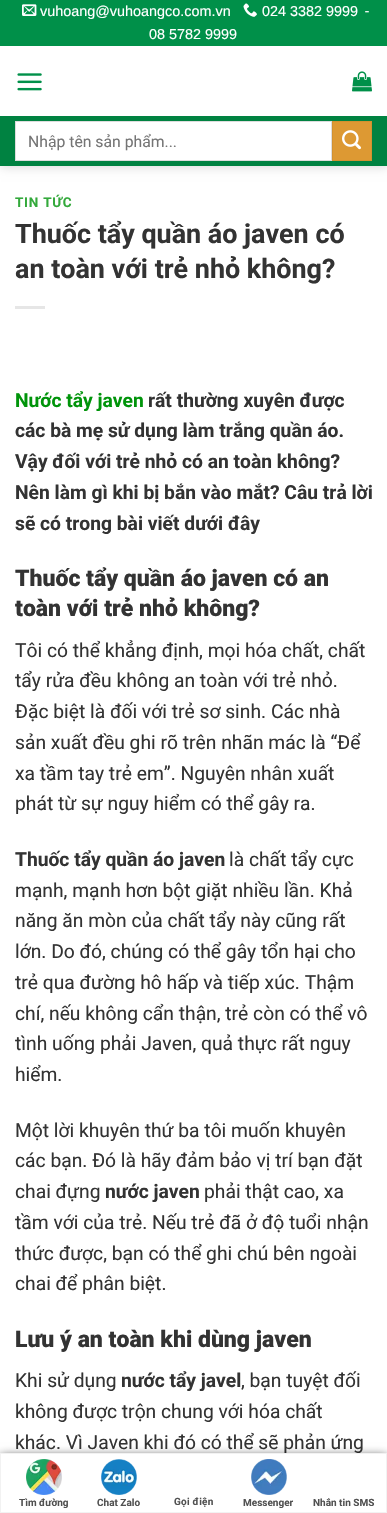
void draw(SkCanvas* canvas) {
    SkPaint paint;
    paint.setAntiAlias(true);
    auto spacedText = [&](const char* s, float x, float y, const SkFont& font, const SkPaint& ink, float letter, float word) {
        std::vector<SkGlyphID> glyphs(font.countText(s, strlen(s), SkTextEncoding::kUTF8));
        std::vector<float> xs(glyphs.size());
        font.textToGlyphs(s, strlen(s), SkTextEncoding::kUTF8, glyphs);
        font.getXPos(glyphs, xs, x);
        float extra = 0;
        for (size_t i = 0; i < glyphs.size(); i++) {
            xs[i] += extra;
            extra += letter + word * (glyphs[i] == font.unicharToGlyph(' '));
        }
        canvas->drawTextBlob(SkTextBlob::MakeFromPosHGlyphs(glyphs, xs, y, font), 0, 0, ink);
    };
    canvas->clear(0xFFFFFFFF);
    paint.setColor(0x26000000);
    paint.setMaskFilter(SkMaskFilter::MakeBlur(kNormal_SkBlurStyle, 5));
    canvas->drawRect(SkRect::MakeXYWH(1, 1, 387, 166), paint);
    paint.setMaskFilter(nullptr);
    paint.setColor(0xFF009049);
    canvas->drawRect(SkRect::MakeXYWH(0, 0, 387, 46), paint);
    canvas->drawImageRect(SkImages::DeferredFromEncodedData(SkData::MakeFromFileName("img1.png")), SkRect::MakeXYWH(22, 4, 15, 12), SkSamplingOptions());
    SkFont font1(fontMgr->matchFamilyStyle("Liberation Sans", SkFontStyle::Normal()), 14.4f);
    font1.setSubpixel(true);
    paint.setColor(0xFFFFFFFF);
    canvas->drawString("vuhoang@vuhoangco.com.vn", 40, 16, font1, paint);
    canvas->drawImageRect(SkImages::DeferredFromEncodedData(SkData::MakeFromFileName("img2.png")), SkRect::MakeXYWH(243, 3, 14, 14), SkSamplingOptions());
    canvas->drawString("024 3382 9999", 262, 16, font1, paint);
    SkFont font2(fontMgr->matchFamilyStyle("Roboto", SkFontStyle::Normal()), 14.4f);
    font2.setSubpixel(true);
    canvas->drawString("-", 365, 16, font2, paint);
    canvas->drawString("08 5782 9999", 149, 39, font1, paint);
    canvas->drawRect(SkRect::MakeXYWH(0, 46, 387, 70), paint);
    canvas->drawImageRect(SkImages::DeferredFromEncodedData(SkData::MakeFromFileName("img3.png")), SkRect::MakeXYWH(17, 73, 25, 18), SkSamplingOptions());
    canvas->drawImageRect(SkImages::DeferredFromEncodedData(SkData::MakeFromFileName("img4.png")), SkRect::MakeXYWH(352, 71, 20, 21), SkSamplingOptions());
    paint.setColor(0xFF008241);
    canvas->drawRect(SkRect::MakeXYWH(0, 116, 387, 50), paint);
    paint.setColor(0xFFFFFFFF);
    canvas->drawRect(SkRect::MakeXYWH(15.5f, 121.5f, 316, 39), paint);
    paint.setStyle(SkPaint::kStroke_Style);
    paint.setStrokeWidth(1);
    paint.setColor(0xFFDDDDDD);
    canvas->drawRect(SkRect::MakeXYWH(15.5f, 121.5f, 316, 39), paint);
    SkFont font3(fontMgr->matchFamilyStyle("Roboto", SkFontStyle::Normal()), 15.75f);
    font3.setSubpixel(true);
    paint.setStyle(SkPaint::kFill_Style);
    paint.setColor(0xFF757575);
    canvas->drawString("Nhập tên sản phẩm...", 28, 147, font3, paint);
    paint.setColor(0xFFDD9933);
    canvas->drawRect(SkRect::MakeXYWH(332.5f, 121.5f, 39, 39), paint);
    paint.setStyle(SkPaint::kStroke_Style);
    paint.setColor(0xFFD29130);
    canvas->drawRect(SkRect::MakeXYWH(332.5f, 121.5f, 39, 39), paint);
    canvas->drawImageRect(SkImages::DeferredFromEncodedData(SkData::MakeFromFileName("img5.png")), SkRect::MakeXYWH(342, 130, 19, 20), SkSamplingOptions());
    SkFont font4(fontMgr->matchFamilyStyle("Roboto", SkFontStyle::Bold()), 13.5f);
    font4.setSubpixel(true);
    paint.setStyle(SkPaint::kFill_Style);
    paint.setColor(0xFF33A93B);
    spacedText("TIN TỨC", 15, 207, font4, paint, 0.75f, 0);
    SkFont font5(fontMgr->matchFamilyStyle("Roboto", SkFontStyle::Bold()), 26.9f);
    font5.setSubpixel(true);
    paint.setColor(0xFF333333);
    canvas->drawString("Thuốc tẩy quần áo javen có", 15, 243, font5, paint);
    canvas->drawString("an toàn với trẻ nhỏ không?", 15, 278, font5, paint);
    paint.setColor(0xFFE6E6E6);
    canvas->drawRect(SkRect::MakeXYWH(15, 306, 30, 3), paint);
    SkFont font6(fontMgr->matchFamilyStyle("Roboto", SkFontStyle::Bold()), 19.25f);
    font6.setSubpixel(true);
    paint.setColor(0xFF00940A);
    canvas->drawString("Nước tẩy javen", 15, 407, font6, paint);
    paint.setColor(0xFF333333);
    canvas->drawString("rất thường xuyên được", 148, 407, font6, paint);
    canvas->drawString("các bà mẹ sử dụng làm trắng quần áo.", 15, 437, font6, paint);
    canvas->drawString("Vậy đối với trẻ nhỏ có an toàn không?", 15, 468, font6, paint);
    canvas->drawString("Nên làm gì khi bị bắn vào mắt? Câu trả lời", 15, 499, font6, paint);
    canvas->drawString("sẽ có trong bài viết dưới đây", 15, 530, font6, paint);
    SkFont font7(fontMgr->matchFamilyStyle("Roboto", SkFontStyle(900, SkFontStyle::kNormal_Width, SkFontStyle::kUpright_Slant)), 23);
    font7.setSubpixel(true);
    canvas->drawString("Thuốc tẩy quần áo javen có an", 15, 586, font7, paint);
    canvas->drawString("toàn với trẻ nhỏ không?", 15, 616, font7, paint);
    SkFont font8(fontMgr->matchFamilyStyle("Roboto", SkFontStyle::Normal()), 19.25f);
    font8.setSubpixel(true);
    canvas->drawString("Tôi có thể khẳng định, mọi hóa chất, chất", 15, 657, font8, paint);
    canvas->drawString("tẩy rửa đều không an toàn với trẻ nhỏ.", 15, 687, font8, paint);
    canvas->drawString("Đặc biệt là đối với trẻ sơ sinh. Các nhà", 15, 718, font8, paint);
    canvas->drawString("sản xuất đều ghi rõ trên nhãn mác là “Để", 15, 749, font8, paint);
    canvas->drawString("xa tầm tay trẻ em”. Nguyên nhân xuất", 15, 780, font8, paint);
    canvas->drawString("phát từ sự nguy hiểm có thể gây ra.", 15, 810, font8, paint);
    canvas->drawString("Thuốc tẩy quần áo javen", 15, 866, font6, paint);
    canvas->drawString("là chất tẩy cực", 229, 866, font8, paint);
    canvas->drawString("mạnh, mạnh hơn bột giặt nhiều lần. Khả", 15, 897, font8, paint);
    canvas->drawString("năng ăn mòn của chất tẩy này cũng rất", 15, 927, font8, paint);
    canvas->drawString("lớn. Do đó, chúng có thể gây tổn hại cho", 15, 958, font8, paint);
    canvas->drawString("trẻ qua đường hô hấp và tiếp xúc. Thậm", 15, 989, font8, paint);
    canvas->drawString("chí, nếu không cẩn thận, trẻ còn có thể vô", 15, 1020, font8, paint);
    canvas->drawString("tình uống phải Javen, quả thực rất nguy", 15, 1050, font8, paint);
    canvas->drawString("hiểm.", 15, 1081, font8, paint);
    canvas->drawString("Một lời khuyên thứ ba tôi muốn khuyên", 15, 1137, font8, paint);
    canvas->drawString("các bạn. Đó là hãy đảm bảo vị trí bạn đặt", 15, 1167, font8, paint);
    canvas->drawString("chai đựng", 15, 1198, font8, paint);
    canvas->drawString("nước javen", 105, 1198, font6, paint);
    canvas->drawString("phải thật cao, xa", 204, 1198, font8, paint);
    canvas->drawString("tầm với của trẻ. Nếu trẻ đã ở độ tuổi nhận", 15, 1229, font8, paint);
    canvas->drawString("thức được, bạn có thể ghi chú bên ngoài", 15, 1260, font8, paint);
    canvas->drawString("chai để phân biệt.", 15, 1290, font8, paint);
    canvas->drawString("Lưu ý an toàn khi dùng javen", 15, 1347, font7, paint);
    canvas->drawString("Khi sử dụng", 15, 1387, font8, paint);
    canvas->drawString("nước tẩy javel", 121, 1387, font6, paint);
    canvas->drawString(", bạn tuyệt đối", 241, 1387, font8, paint);
    canvas->drawString("không được trộn chung với hóa chất", 15, 1418, font8, paint);
    canvas->drawString("khác. Vì Javen khi đó có thể sẽ phản ứng", 15, 1449, font8, paint);
    paint.setColor(0xFF000000);
    paint.setMaskFilter(SkMaskFilter::MakeBlur(kNormal_SkBlurStyle, 5));
    canvas->drawRect(SkRect::MakeXYWH(0, 1457, 387, 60), paint);
    paint.setMaskFilter(nullptr);
    paint.setColor(0xFFFFFFFF);
    canvas->drawRect(SkRect::MakeXYWH(0.5f, 1453.5f, 386, 59), paint);
    paint.setStyle(SkPaint::kStroke_Style);
    paint.setColor(0xFFF2F2F2);
    canvas->drawRect(SkRect::MakeXYWH(0.5f, 1453.5f, 386, 59), paint);
    canvas->drawImageRect(SkImages::DeferredFromEncodedData(SkData::MakeFromFileName("img6.png")), SkRect::MakeXYWH(26, 1459, 36, 36), SkSamplingOptions());
    SkFont font9(fontMgr->matchFamilyStyle("Roboto", SkFontStyle::Bold()), 10);
    font9.setSubpixel(true);
    paint.setStyle(SkPaint::kFill_Style);
    paint.setColor(0xFF515151);
    canvas->drawString("Tìm đường", 19, 1506, font9, paint);
    canvas->drawImageRect(SkImages::DeferredFromEncodedData(SkData::MakeFromFileName("img7.png")), SkRect::MakeXYWH(101, 1459, 36, 36), SkSamplingOptions());
    canvas->drawString("Chat Zalo", 97, 1506, font9, paint);
    spacedText("Gọi điện", 174, 1505, font9, paint, 0.25f, 0);
    canvas->drawImageRect(SkImages::DeferredFromEncodedData(SkData::MakeFromFileName("img8.png")), SkRect::MakeXYWH(251, 1459, 36, 36), SkSamplingOptions());
    canvas->drawString("Messenger", 243, 1506, font9, paint);
    canvas->drawString("Nhắn tin SMS", 313, 1506, font9, paint);
}
